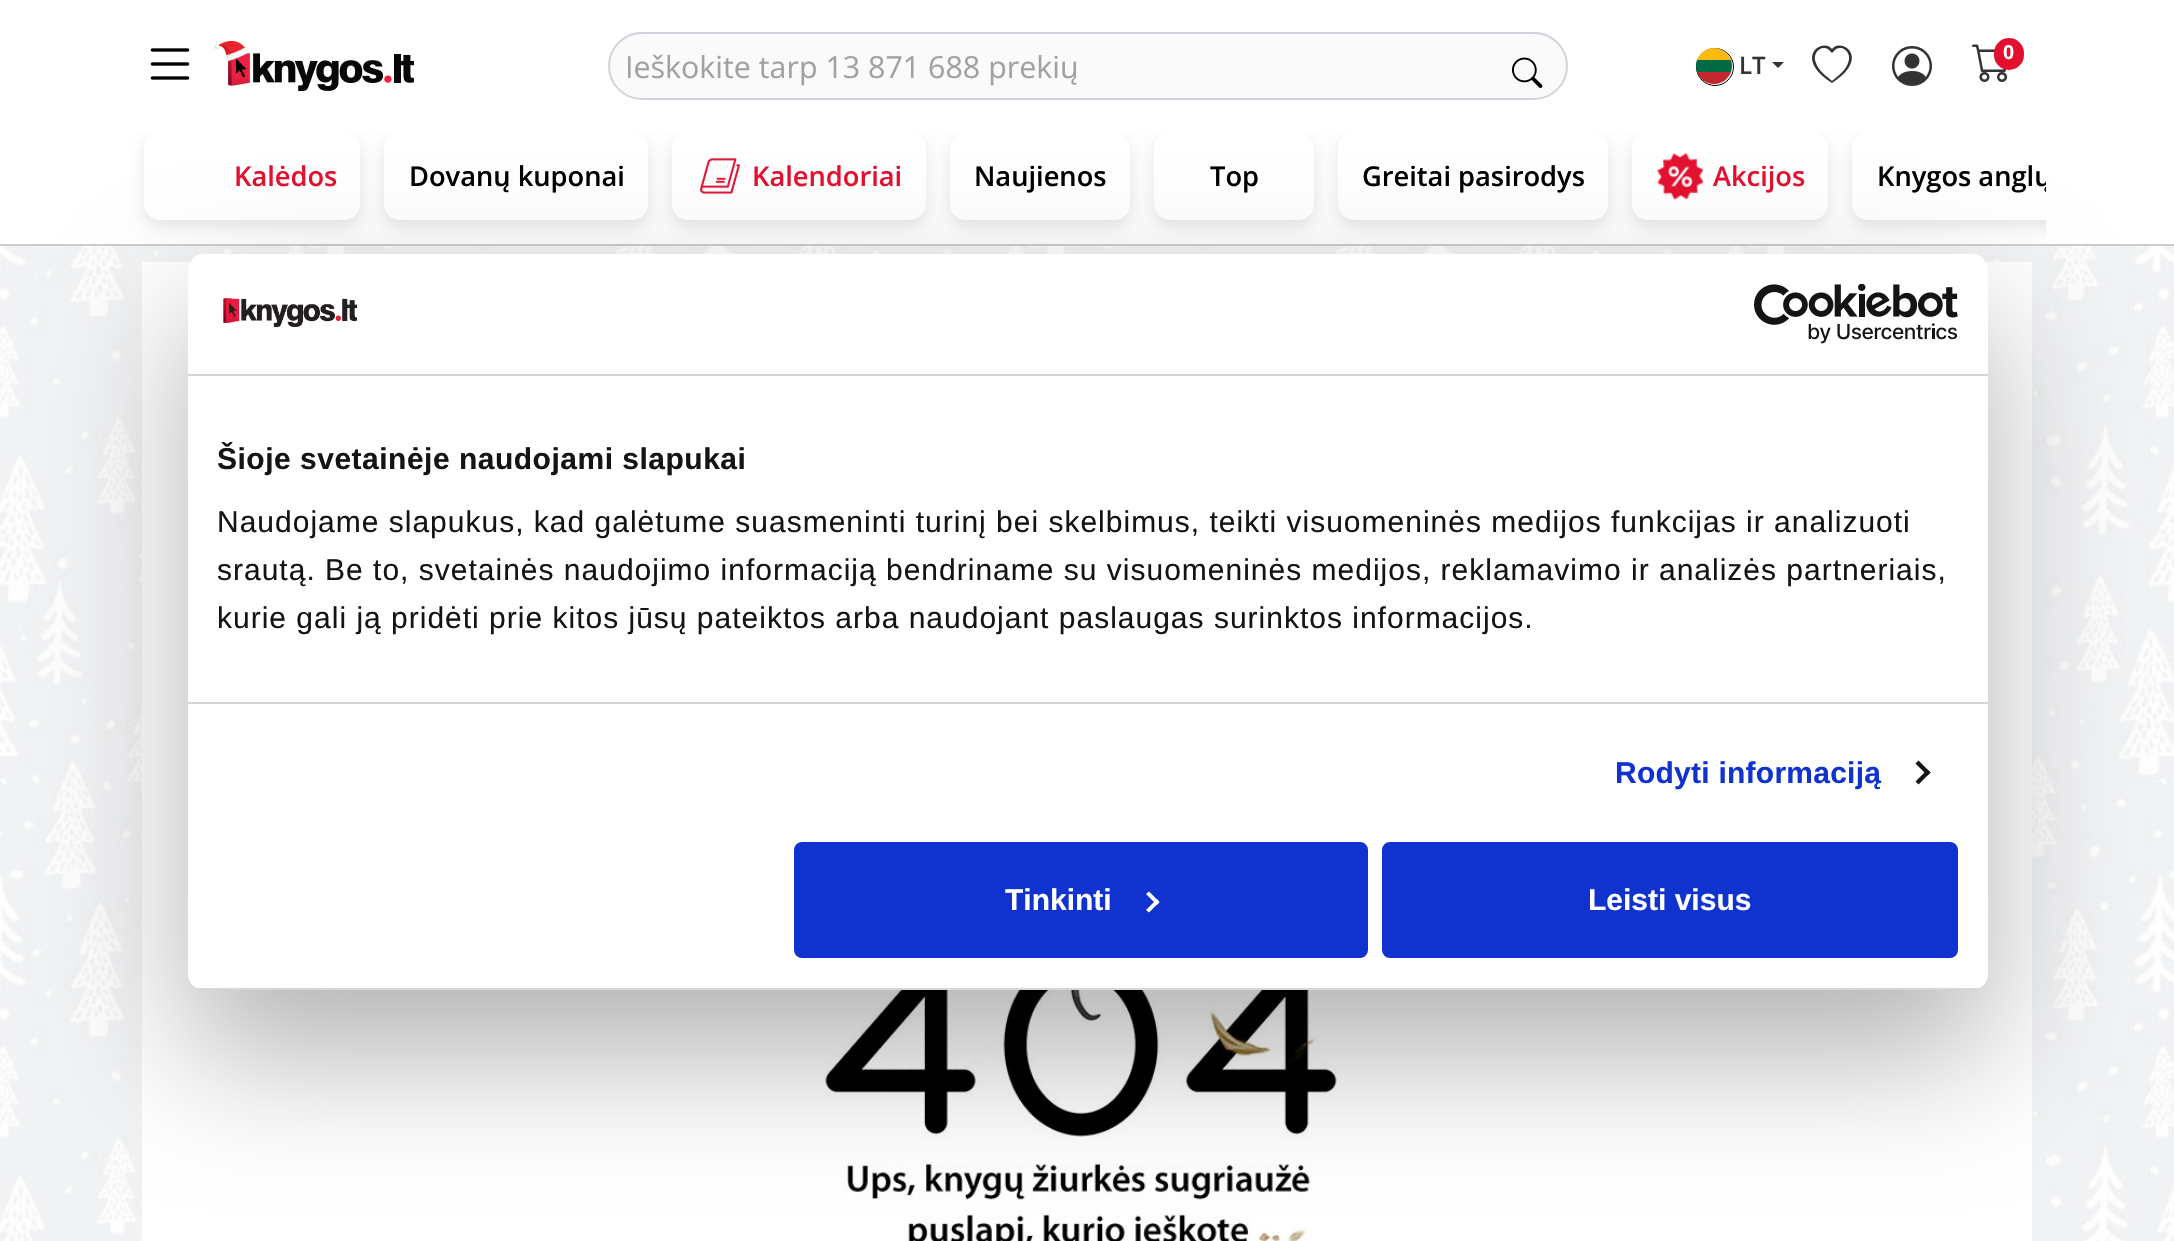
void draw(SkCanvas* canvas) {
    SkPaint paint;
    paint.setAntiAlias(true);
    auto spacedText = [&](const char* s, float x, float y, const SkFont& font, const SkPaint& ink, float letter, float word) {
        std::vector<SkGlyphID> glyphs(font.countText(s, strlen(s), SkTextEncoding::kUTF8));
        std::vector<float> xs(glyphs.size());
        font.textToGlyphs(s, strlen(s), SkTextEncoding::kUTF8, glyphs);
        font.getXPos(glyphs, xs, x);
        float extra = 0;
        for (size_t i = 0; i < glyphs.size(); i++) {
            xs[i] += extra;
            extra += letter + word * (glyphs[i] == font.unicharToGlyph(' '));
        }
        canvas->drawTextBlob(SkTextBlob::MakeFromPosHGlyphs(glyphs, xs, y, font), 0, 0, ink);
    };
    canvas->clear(0xFFFFFFFF);
    canvas->drawImageRect(SkImages::DeferredFromEncodedData(SkData::MakeFromFileName("img1.png")), SkRect::MakeXYWH(0, 246, 2174, 995), SkSamplingOptions());
    paint.setColor(0xFFCCCCCC);
    canvas->drawRect(SkRect::MakeXYWH(0, 244, 2174, 2), paint);
    canvas->drawImageRect(SkImages::DeferredFromEncodedData(SkData::MakeFromFileName("img2.png")), SkRect::MakeXYWH(150, 48, 40, 32), SkSamplingOptions());
    canvas->drawImageRect(SkImages::DeferredFromEncodedData(SkData::MakeFromFileName("img3.png")), SkRect::MakeXYWH(214, 41, 200, 51), SkSamplingOptions());
    paint.setColor(0xFFFAFAFA);
    canvas->drawRoundRect(SkRect::MakeXYWH(609, 33, 958, 66), 33, 33, paint);
    paint.setStyle(SkPaint::kStroke_Style);
    paint.setStrokeWidth(2);
    paint.setColor(0xFFCED4DA);
    canvas->drawRoundRect(SkRect::MakeXYWH(609, 33, 958, 66), 33, 33, paint);
    SkFont font1(fontMgr->matchFamilyStyle("Open Sans", SkFontStyle::Normal()), 30.4f);
    font1.setSubpixel(true);
    paint.setStyle(SkPaint::kFill_Style);
    paint.setColor(0xFFA1A1A1);
    canvas->drawString("Ieškokite tarp 13 871 688 prekių", 625, 78, font1, paint);
    canvas->drawImageRect(SkImages::DeferredFromEncodedData(SkData::MakeFromFileName("img4.png")), SkRect::MakeXYWH(1512, 57, 31, 31), SkSamplingOptions());
    paint.setStyle(SkPaint::kStroke_Style);
    paint.setStrokeWidth(1);
    paint.setColor(0xFF000000);
    canvas->drawCircle(1715, 67, 18.5f, paint);
    canvas->save();
    canvas->clipPath(SkPathBuilder().moveTo(1714, 48).cubicTo(1724, 48, 1732, 56, 1732, 66).cubicTo(1732, 76, 1724, 84, 1714, 84).cubicTo(1704, 84, 1696, 76, 1696, 66).cubicTo(1696, 56, 1704, 48, 1714, 48).close().detach(), true);
    paint.setStyle(SkPaint::kFill_Style);
    paint.setColor(0xFFC1272D);
    canvas->drawRect(SkRect::MakeXYWH(1697, 72, 34, 12), paint);
    paint.setColor(0xFF006A44);
    canvas->drawRect(SkRect::MakeXYWH(1696, 60, 36, 12), paint);
    paint.setColor(0xFFFDB913);
    canvas->drawRect(SkRect::MakeXYWH(1697, 48, 34, 12), paint);
    canvas->restore();
    SkFont font2(fontMgr->matchFamilyStyle("Open Sans", SkFontStyle(600, SkFontStyle::kNormal_Width, SkFontStyle::kUpright_Slant)), 24);
    font2.setSubpixel(true);
    paint.setColor(0xFF333333);
    canvas->drawString("LT", 1739, 74, font2, paint);
    canvas->drawPath(SkPathBuilder().moveTo(1772, 62).lineTo(1784, 62).lineTo(1778, 68).close().detach(), paint);
    canvas->drawPath(SkPathBuilder().moveTo(1832, 53).lineTo(1828, 49).cubicTo(1819, 45, 1812, 55, 1816, 63).cubicTo(1818, 70, 1826, 76, 1832, 81).cubicTo(1838, 76, 1846, 70, 1848, 63).cubicTo(1852, 55, 1845, 45, 1836, 49).close().moveTo(1832, 83).cubicTo(1792, 57, 1823, 37, 1832, 49).cubicTo(1841, 37, 1872, 57, 1832, 83).close().detach(), paint);
    canvas->drawImageRect(SkImages::DeferredFromEncodedData(SkData::MakeFromFileName("img5.png")), SkRect::MakeXYWH(1892, 46, 40, 40), SkSamplingOptions());
    canvas->drawImageRect(SkImages::DeferredFromEncodedData(SkData::MakeFromFileName("img6.png")), SkRect::MakeXYWH(1972, 44, 36, 38), SkSamplingOptions());
    paint.setColor(0xFFE40F2F);
    canvas->drawRoundRect(SkRect::MakeXYWH(1994, 38, 30, 32), 15, 15, paint);
    SkFont font3(fontMgr->matchFamilyStyle("Liberation Sans", SkFontStyle::Bold()), 20);
    font3.setSubpixel(true);
    paint.setColor(0xFFFFFFFF);
    canvas->drawString("0", 2003, 59, font3, paint);
    canvas->save();
    canvas->clipRect(SkRect::MakeXYWH(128, 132, 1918, 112));
    canvas->clipPath(SkPathBuilder(SkPathFillType::kEvenOdd).moveTo(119, 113).lineTo(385, 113).lineTo(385, 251).lineTo(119, 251).close().moveTo(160, 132).lineTo(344, 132).cubicTo(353, 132, 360, 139, 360, 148).lineTo(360, 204).cubicTo(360, 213, 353, 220, 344, 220).lineTo(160, 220).cubicTo(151, 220, 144, 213, 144, 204).lineTo(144, 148).cubicTo(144, 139, 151, 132, 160, 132).close().detach(), true);
    paint.setColor(0x1A000000);
    paint.setMaskFilter(SkMaskFilter::MakeBlur(kNormal_SkBlurStyle, 8));
    canvas->drawRoundRect(SkRect::MakeXYWH(144, 138, 216, 88), 16, 16, paint);
    paint.setMaskFilter(nullptr);
    canvas->restore();
    SkFont font4(fontMgr->matchFamilyStyle("Open Sans", SkFontStyle(600, SkFontStyle::kNormal_Width, SkFontStyle::kUpright_Slant)), 27.25f);
    font4.setSubpixel(true);
    paint.setColor(0xFFE40F2F);
    canvas->drawString("Kalėdos", 234, 186, font4, paint);
    canvas->save();
    canvas->clipRect(SkRect::MakeXYWH(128, 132, 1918, 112));
    canvas->clipPath(SkPathBuilder(SkPathFillType::kEvenOdd).moveTo(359, 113).lineTo(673, 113).lineTo(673, 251).lineTo(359, 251).close().moveTo(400, 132).lineTo(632, 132).cubicTo(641, 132, 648, 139, 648, 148).lineTo(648, 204).cubicTo(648, 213, 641, 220, 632, 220).lineTo(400, 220).cubicTo(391, 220, 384, 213, 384, 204).lineTo(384, 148).cubicTo(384, 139, 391, 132, 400, 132).close().detach(), true);
    paint.setColor(0x1A000000);
    paint.setMaskFilter(SkMaskFilter::MakeBlur(kNormal_SkBlurStyle, 8));
    canvas->drawRoundRect(SkRect::MakeXYWH(384, 138, 264, 88), 16, 16, paint);
    paint.setMaskFilter(nullptr);
    canvas->restore();
    paint.setColor(0xFF000000);
    canvas->drawString("Dovanų kuponai", 409, 186, font4, paint);
    canvas->save();
    canvas->clipRect(SkRect::MakeXYWH(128, 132, 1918, 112));
    canvas->clipPath(SkPathBuilder(SkPathFillType::kEvenOdd).moveTo(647, 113).lineTo(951, 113).lineTo(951, 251).lineTo(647, 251).close().moveTo(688, 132).lineTo(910, 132).cubicTo(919, 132, 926, 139, 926, 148).lineTo(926, 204).cubicTo(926, 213, 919, 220, 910, 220).lineTo(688, 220).cubicTo(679, 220, 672, 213, 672, 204).lineTo(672, 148).cubicTo(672, 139, 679, 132, 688, 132).close().detach(), true);
    paint.setColor(0x1A000000);
    paint.setMaskFilter(SkMaskFilter::MakeBlur(kNormal_SkBlurStyle, 8));
    canvas->drawRoundRect(SkRect::MakeXYWH(672, 138, 254, 88), 16, 16, paint);
    paint.setMaskFilter(nullptr);
    canvas->restore();
    canvas->drawImageRect(SkImages::DeferredFromEncodedData(SkData::MakeFromFileName("img7.png")), SkRect::MakeXYWH(700, 158, 40, 36), SkSamplingOptions());
    paint.setColor(0xFFE40F2F);
    canvas->drawString("Kalendoriai", 752, 186, font4, paint);
    canvas->save();
    canvas->clipRect(SkRect::MakeXYWH(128, 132, 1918, 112));
    canvas->clipPath(SkPathBuilder(SkPathFillType::kEvenOdd).moveTo(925, 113).lineTo(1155, 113).lineTo(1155, 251).lineTo(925, 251).close().moveTo(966, 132).lineTo(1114, 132).cubicTo(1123, 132, 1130, 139, 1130, 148).lineTo(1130, 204).cubicTo(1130, 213, 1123, 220, 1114, 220).lineTo(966, 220).cubicTo(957, 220, 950, 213, 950, 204).lineTo(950, 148).cubicTo(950, 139, 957, 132, 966, 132).close().detach(), true);
    paint.setColor(0x1A000000);
    paint.setMaskFilter(SkMaskFilter::MakeBlur(kNormal_SkBlurStyle, 8));
    canvas->drawRoundRect(SkRect::MakeXYWH(950, 138, 180, 88), 16, 16, paint);
    paint.setMaskFilter(nullptr);
    canvas->restore();
    paint.setColor(0xFF000000);
    canvas->drawString("Naujienos", 974, 186, font4, paint);
    canvas->save();
    canvas->clipRect(SkRect::MakeXYWH(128, 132, 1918, 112));
    canvas->clipPath(SkPathBuilder(SkPathFillType::kEvenOdd).moveTo(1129, 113).lineTo(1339, 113).lineTo(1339, 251).lineTo(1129, 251).close().moveTo(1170, 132).lineTo(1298, 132).cubicTo(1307, 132, 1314, 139, 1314, 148).lineTo(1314, 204).cubicTo(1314, 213, 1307, 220, 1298, 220).lineTo(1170, 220).cubicTo(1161, 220, 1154, 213, 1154, 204).lineTo(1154, 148).cubicTo(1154, 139, 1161, 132, 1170, 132).close().detach(), true);
    paint.setColor(0x1A000000);
    paint.setMaskFilter(SkMaskFilter::MakeBlur(kNormal_SkBlurStyle, 8));
    canvas->drawRoundRect(SkRect::MakeXYWH(1154, 138, 160, 88), 16, 16, paint);
    paint.setMaskFilter(nullptr);
    canvas->restore();
    paint.setColor(0xFF000000);
    canvas->drawString("Top", 1210, 186, font4, paint);
    canvas->save();
    canvas->clipRect(SkRect::MakeXYWH(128, 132, 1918, 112));
    canvas->clipPath(SkPathBuilder(SkPathFillType::kEvenOdd).moveTo(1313, 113).lineTo(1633, 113).lineTo(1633, 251).lineTo(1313, 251).close().moveTo(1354, 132).lineTo(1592, 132).cubicTo(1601, 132, 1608, 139, 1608, 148).lineTo(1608, 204).cubicTo(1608, 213, 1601, 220, 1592, 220).lineTo(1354, 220).cubicTo(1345, 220, 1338, 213, 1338, 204).lineTo(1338, 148).cubicTo(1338, 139, 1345, 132, 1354, 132).close().detach(), true);
    paint.setColor(0x1A000000);
    paint.setMaskFilter(SkMaskFilter::MakeBlur(kNormal_SkBlurStyle, 8));
    canvas->drawRoundRect(SkRect::MakeXYWH(1338, 138, 270, 88), 16, 16, paint);
    paint.setMaskFilter(nullptr);
    canvas->restore();
    paint.setColor(0xFF000000);
    canvas->drawString("Greitai pasirodys", 1362, 186, font4, paint);
    canvas->save();
    canvas->clipRect(SkRect::MakeXYWH(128, 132, 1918, 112));
    canvas->clipPath(SkPathBuilder(SkPathFillType::kEvenOdd).moveTo(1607, 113).lineTo(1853, 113).lineTo(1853, 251).lineTo(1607, 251).close().moveTo(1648, 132).lineTo(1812, 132).cubicTo(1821, 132, 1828, 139, 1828, 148).lineTo(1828, 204).cubicTo(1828, 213, 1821, 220, 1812, 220).lineTo(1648, 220).cubicTo(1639, 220, 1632, 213, 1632, 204).lineTo(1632, 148).cubicTo(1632, 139, 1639, 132, 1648, 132).close().detach(), true);
    paint.setColor(0x1A000000);
    paint.setMaskFilter(SkMaskFilter::MakeBlur(kNormal_SkBlurStyle, 8));
    canvas->drawRoundRect(SkRect::MakeXYWH(1632, 138, 196, 88), 16, 16, paint);
    paint.setMaskFilter(nullptr);
    canvas->restore();
    canvas->drawImageRect(SkImages::DeferredFromEncodedData(SkData::MakeFromFileName("img8.png")), SkRect::MakeXYWH(1657, 153, 47, 47), SkSamplingOptions());
    paint.setColor(0xFFE40F2F);
    canvas->drawString("Akcijos", 1713, 186, font4, paint);
    canvas->save();
    canvas->clipRect(SkRect::MakeXYWH(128, 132, 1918, 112));
    canvas->clipPath(SkPathBuilder(SkPathFillType::kEvenOdd).moveTo(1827, 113).lineTo(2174, 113).lineTo(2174, 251).lineTo(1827, 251).close().moveTo(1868, 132).lineTo(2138, 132).cubicTo(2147, 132, 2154, 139, 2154, 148).lineTo(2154, 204).cubicTo(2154, 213, 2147, 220, 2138, 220).lineTo(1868, 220).cubicTo(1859, 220, 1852, 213, 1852, 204).lineTo(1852, 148).cubicTo(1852, 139, 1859, 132, 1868, 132).close().detach(), true);
    paint.setColor(0x1A000000);
    paint.setMaskFilter(SkMaskFilter::MakeBlur(kNormal_SkBlurStyle, 8));
    canvas->drawRoundRect(SkRect::MakeXYWH(1852, 138, 302, 88), 16, 16, paint);
    paint.setMaskFilter(nullptr);
    canvas->restore();
    canvas->save();
    canvas->clipRect(SkRect::MakeXYWH(128, 132, 1918, 112));
    paint.setColor(0xFF000000);
    canvas->drawString("Knygos anglų", 1877, 186, font4, paint);
    canvas->restore();
    paint.setColor(0xFFFFFFFF);
    canvas->drawRect(SkRect::MakeXYWH(142, 262, 1890, 979), paint);
    canvas->drawImageRect(SkImages::DeferredFromEncodedData(SkData::MakeFromFileName("img9.png")), SkRect::MakeXYWH(818, 990, 540, 251), SkSamplingOptions());
    paint.setColor(0x4D000000);
    paint.setMaskFilter(SkMaskFilter::MakeBlur(kNormal_SkBlurStyle, 68));
    canvas->drawRoundRect(SkRect::MakeXYWH(188, 318, 1800, 736), 16, 16, paint);
    paint.setMaskFilter(nullptr);
    paint.setColor(0xFFFFFFFF);
    canvas->drawRoundRect(SkRect::MakeXYWH(188, 254, 1800, 736), 16, 16, paint);
    paint.setColor(0xFFD6D6D6);
    canvas->drawRect(SkRect::MakeXYWH(188, 374, 1800, 2), paint);
    canvas->drawImageRect(SkImages::DeferredFromEncodedData(SkData::MakeFromFileName("img10.png")), SkRect::MakeXYWH(223, 298, 135, 29), SkSamplingOptions());
    canvas->drawImageRect(SkImages::DeferredFromEncodedData(SkData::MakeFromFileName("img11.png")), SkRect::MakeXYWH(1754, 284, 204, 60), SkSamplingOptions());
    canvas->drawRect(SkRect::MakeXYWH(188, 702, 1800, 2), paint);
    SkFont font5(fontMgr->matchFamilyStyle("Liberation Sans", SkFontStyle::Bold()), 30);
    font5.setSubpixel(true);
    paint.setColor(0xFF141414);
    spacedText("Šioje svetainėje naudojami slapukai", 217, 469, font5, paint, 0.5f, 0);
    SkFont font6(fontMgr->matchFamilyStyle("Liberation Sans", SkFontStyle::Normal()), 30);
    font6.setSubpixel(true);
    spacedText("Naudojame slapukus, kad galėtume suasmeninti turinį bei skelbimus, teikti visuomeninės medijos funkcijas ir analizuoti", 217, 532, font6, paint, 1, 0);
    spacedText("srautą. Be to, svetainės naudojimo informaciją bendriname su visuomeninės medijos, reklamavimo ir analizės partneriais,", 217, 580, font6, paint, 1, 0);
    spacedText("kurie gali ją pridėti prie kitos jūsų pateiktos arba naudojant paslaugas surinktos informacijos.", 217, 628, font6, paint, 1, 0);
    paint.setColor(0xFF1032CF);
    spacedText("Rodyti informaciją", 1615, 783, font5, paint, 0.25f, 0);
    paint.setColor(0xFF141414);
    canvas->drawPath(SkPathBuilder().moveTo(1918.5f, 760.5f).lineTo(1930.5f, 772.5f).lineTo(1927.5f, 775.5f).lineTo(1915.5f, 763.5f).close().detach(), paint);
    canvas->drawPath(SkPathBuilder().moveTo(1927.5f, 769.5f).lineTo(1930.5f, 772.5f).lineTo(1918.5f, 784.5f).lineTo(1915.5f, 781.5f).close().detach(), paint);
    canvas->save();
    canvas->clipPath(SkPathBuilder().moveTo(204, 254).lineTo(1972, 254).cubicTo(1981, 254, 1988, 261, 1988, 270).lineTo(1988, 974).cubicTo(1988, 983, 1981, 990, 1972, 990).lineTo(204, 990).cubicTo(195, 990, 188, 983, 188, 974).lineTo(188, 270).cubicTo(188, 261, 195, 254, 204, 254).close().detach(), true);
    paint.setColor(0xFFD6D6D6);
    canvas->drawRect(SkRect::MakeXYWH(188, 988, 1800, 2), paint);
    canvas->restore();
    paint.setColor(0xFF1032CF);
    canvas->drawRoundRect(SkRect::MakeXYWH(796, 844, 570, 112), 6, 6, paint);
    paint.setStyle(SkPaint::kStroke_Style);
    paint.setStrokeWidth(4);
    canvas->drawRoundRect(SkRect::MakeXYWH(796, 844, 570, 112), 6, 6, paint);
    paint.setStyle(SkPaint::kFill_Style);
    paint.setColor(0xFFFFFFFF);
    canvas->drawString("Tinkinti", 1005, 910, font5, paint);
    canvas->drawPath(SkPathBuilder().moveTo(1149, 891.5f).lineTo(1159.5f, 902).lineTo(1157, 905).lineTo(1146, 894).close().detach(), paint);
    canvas->drawPath(SkPathBuilder().moveTo(1157, 899).lineTo(1159.5f, 902).lineTo(1149, 912.5f).lineTo(1146, 910).close().detach(), paint);
    paint.setColor(0xFF1032CF);
    canvas->drawRoundRect(SkRect::MakeXYWH(1384, 844, 572, 112), 6, 6, paint);
    paint.setStyle(SkPaint::kStroke_Style);
    canvas->drawRoundRect(SkRect::MakeXYWH(1384, 844, 572, 112), 6, 6, paint);
    paint.setStyle(SkPaint::kFill_Style);
    paint.setColor(0xFFFFFFFF);
    canvas->drawString("Leisti visus", 1588, 910, font5, paint);
}
